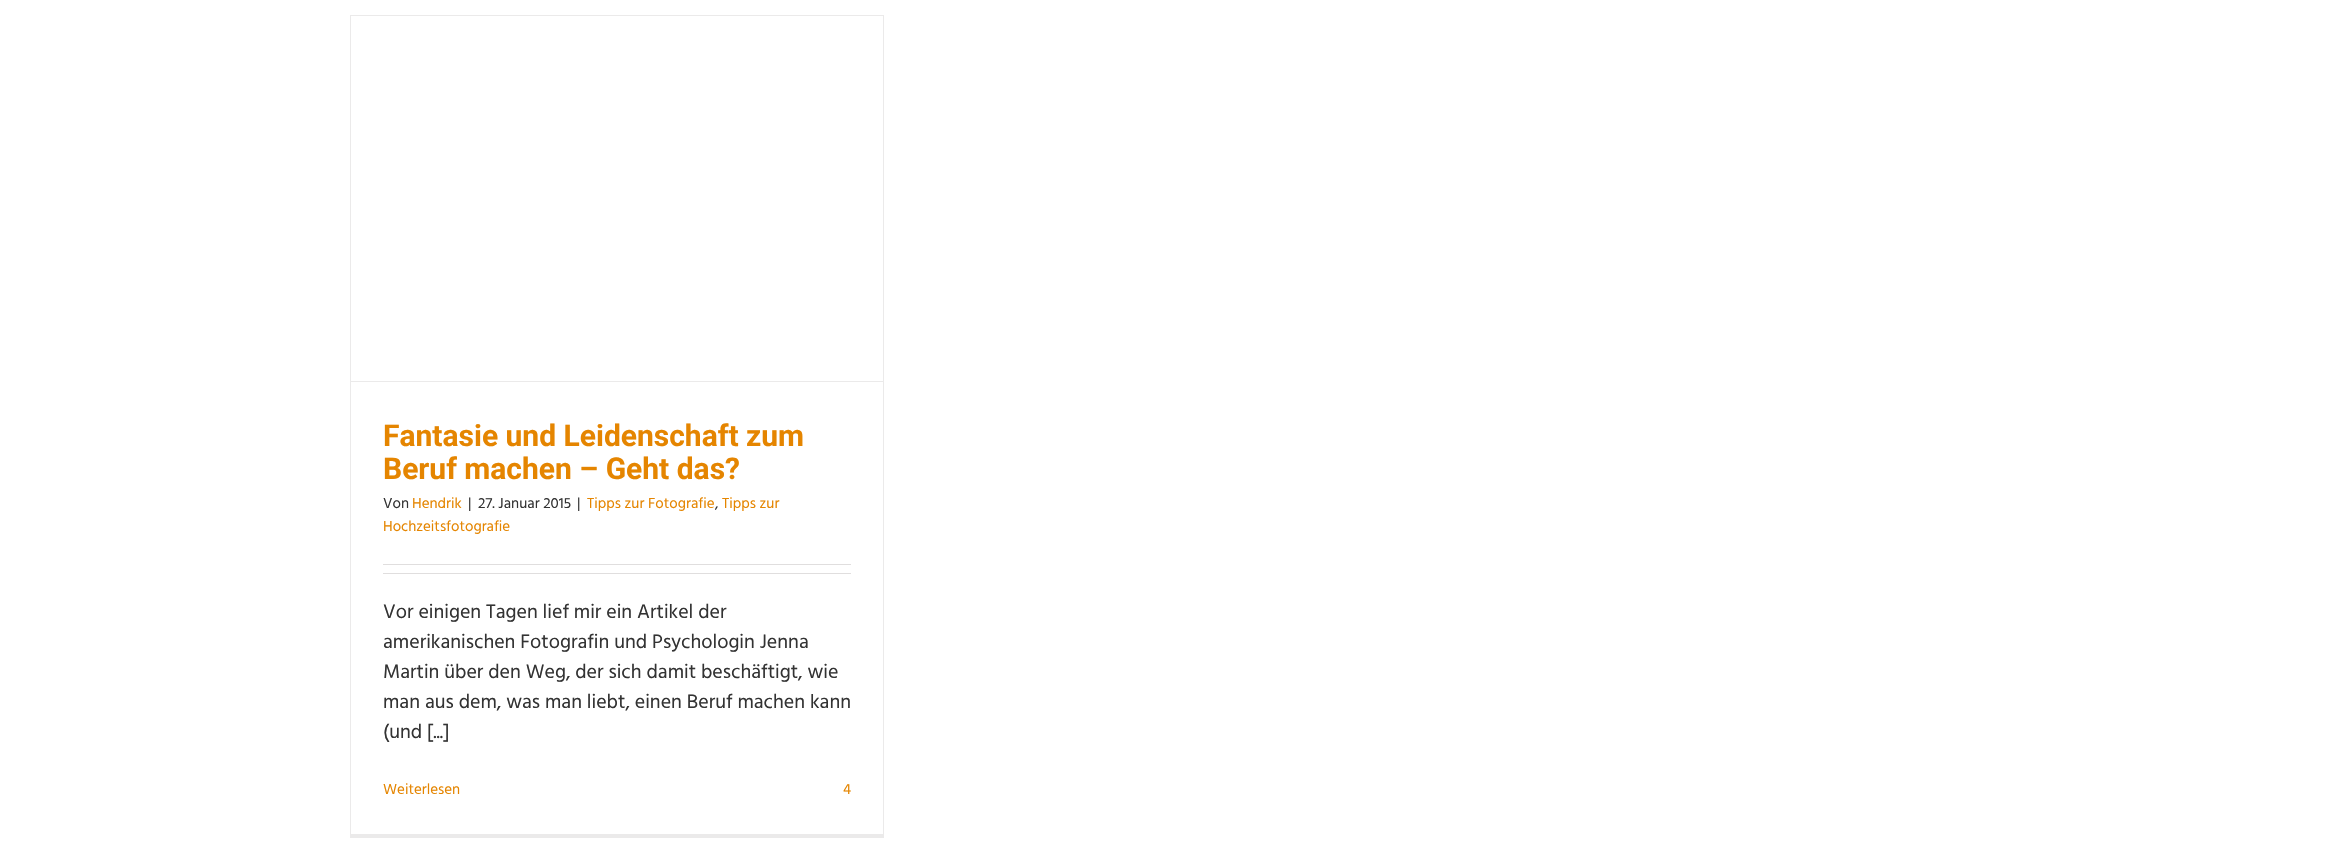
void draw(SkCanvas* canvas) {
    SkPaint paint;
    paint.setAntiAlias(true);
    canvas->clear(0xFFFFFFFF);
    paint.setColor(0xFFEBEAEA);
    canvas->drawRect(SkRect::MakeXYWH(350, 15, 534, 1), paint);
    canvas->drawRect(SkRect::MakeXYWH(883, 15, 1, 823), paint);
    canvas->drawRect(SkRect::MakeXYWH(350, 834, 534, 4), paint);
    canvas->drawRect(SkRect::MakeXYWH(350, 15, 1, 823), paint);
    canvas->drawRect(SkRect::MakeXYWH(351, 381, 532, 1), paint);
    SkFont font1(fontMgr->matchFamilyStyle("Roboto", SkFontStyle::Bold()), 30);
    font1.setSubpixel(true);
    paint.setColor(0xFFE58500);
    canvas->drawString("Fantasie und Leidenschaft zum", 383, 446, font1, paint);
    canvas->drawString("Beruf machen – Geht das?", 383, 479, font1, paint);
    SkFont font2(fontMgr->matchFamilyStyle("Hind", SkFontStyle::Normal()), 15);
    font2.setSubpixel(true);
    paint.setColor(0xFF333333);
    canvas->drawString("Von", 383, 508, font2, paint);
    paint.setColor(0xFFE58500);
    canvas->drawString("Hendrik", 412, 508, font2, paint);
    paint.setColor(0xFF333333);
    canvas->drawString("|", 468, 508, font2, paint);
    canvas->drawString("27. Januar 2015", 478, 508, font2, paint);
    canvas->drawString("|", 577, 508, font2, paint);
    paint.setColor(0xFFE58500);
    canvas->drawString("Tipps zur Fotografie", 587, 508, font2, paint);
    paint.setColor(0xFF333333);
    canvas->drawString(",", 715, 508, font2, paint);
    paint.setColor(0xFFE58500);
    canvas->drawString("Tipps zur", 722, 508, font2, paint);
    canvas->drawString("Hochzeitsfotografie", 383, 531, font2, paint);
    paint.setColor(0xFFE0DEDE);
    canvas->drawRect(SkRect::MakeXYWH(383, 564, 468, 1), paint);
    canvas->drawRect(SkRect::MakeXYWH(383, 573, 468, 1), paint);
    SkFont font3(fontMgr->matchFamilyStyle("Hind", SkFontStyle::Normal()), 20);
    font3.setSubpixel(true);
    paint.setColor(0xFF333333);
    canvas->drawString("Vor einigen Tagen lief mir ein Artikel der", 383, 618, font3, paint);
    canvas->drawString("amerikanischen Fotografin und Psychologin Jenna", 383, 648, font3, paint);
    canvas->drawString("Martin über den Weg, der sich damit beschäftigt, wie", 383, 678, font3, paint);
    canvas->drawString("man aus dem, was man liebt, einen Beruf machen kann", 383, 708, font3, paint);
    canvas->drawString("(und [...]", 383, 738, font3, paint);
    paint.setColor(0xFFE58500);
    canvas->drawString("Weiterlesen", 383, 794, font2, paint);
    canvas->drawString("4", 843, 794, font2, paint);
}
